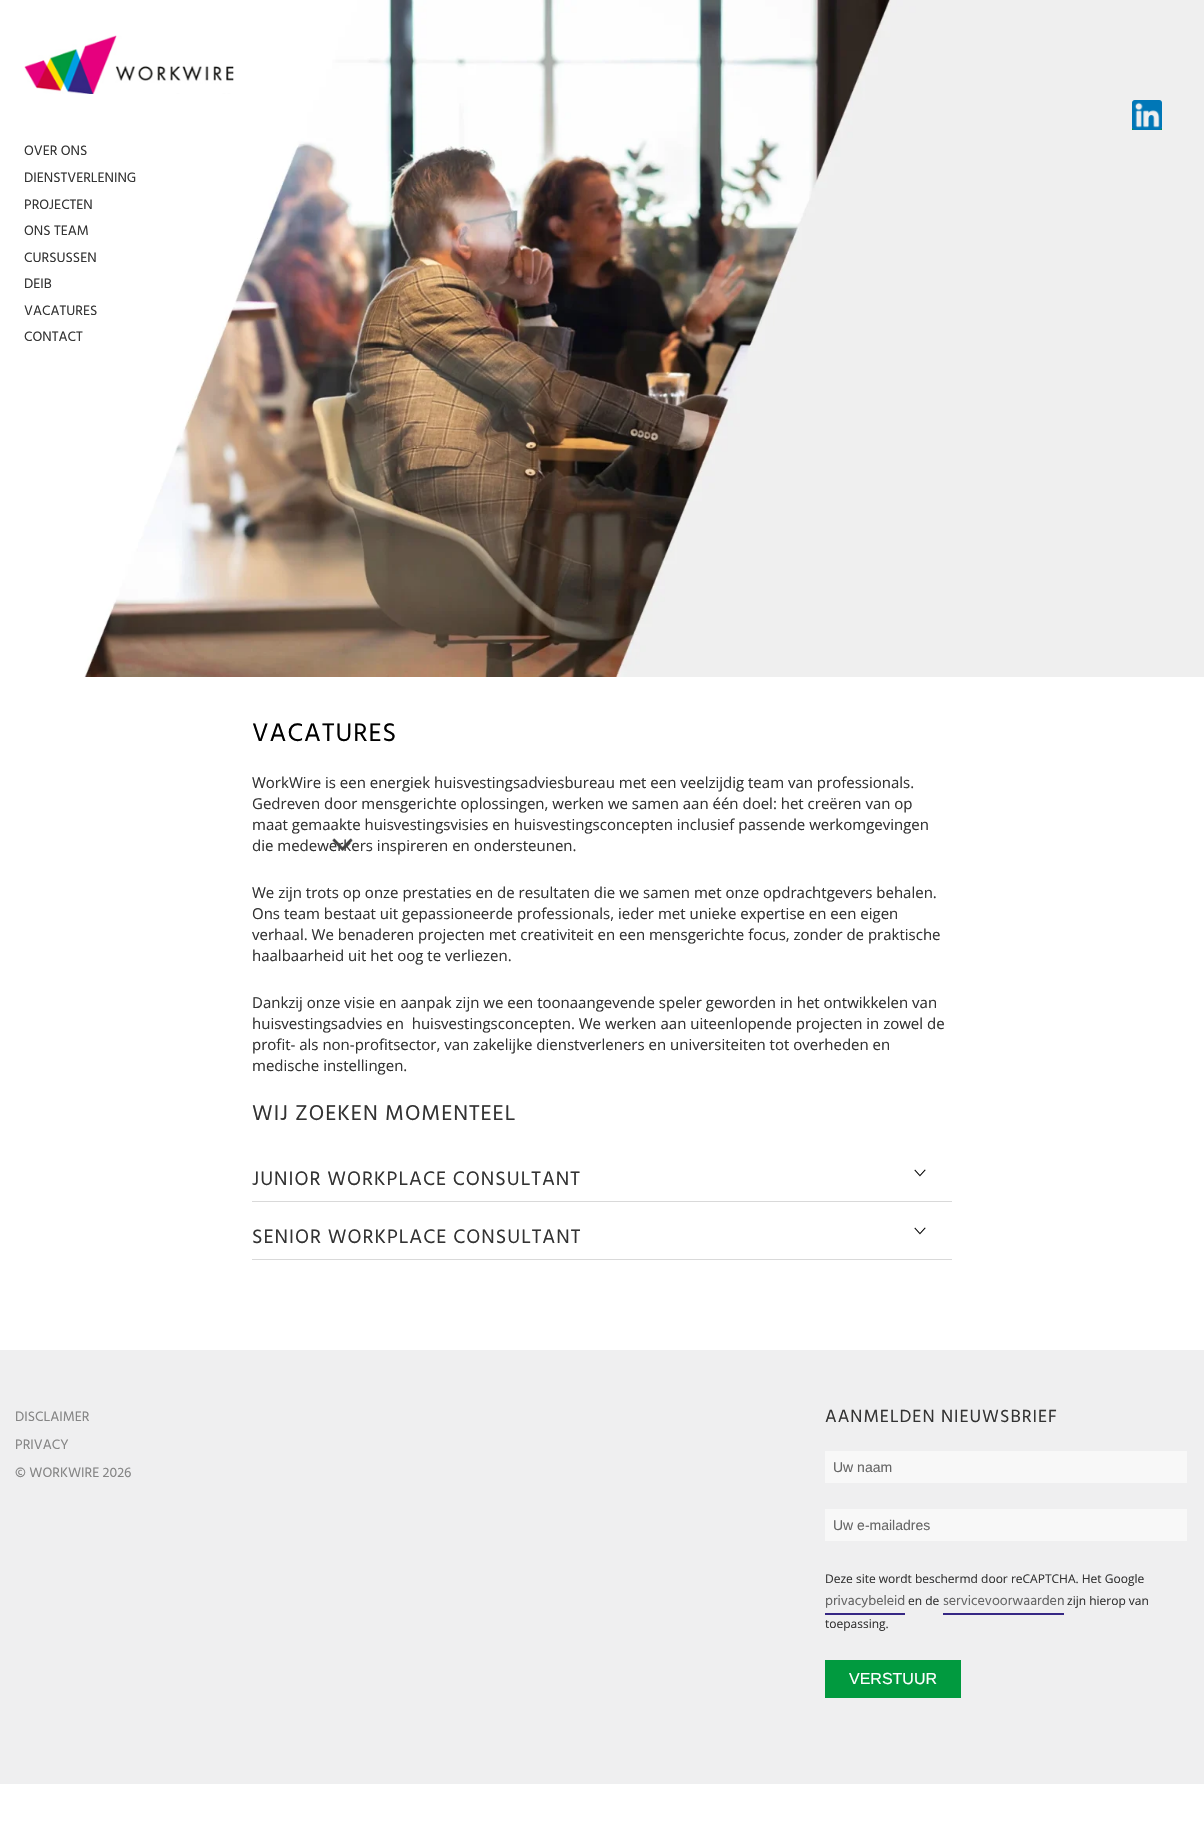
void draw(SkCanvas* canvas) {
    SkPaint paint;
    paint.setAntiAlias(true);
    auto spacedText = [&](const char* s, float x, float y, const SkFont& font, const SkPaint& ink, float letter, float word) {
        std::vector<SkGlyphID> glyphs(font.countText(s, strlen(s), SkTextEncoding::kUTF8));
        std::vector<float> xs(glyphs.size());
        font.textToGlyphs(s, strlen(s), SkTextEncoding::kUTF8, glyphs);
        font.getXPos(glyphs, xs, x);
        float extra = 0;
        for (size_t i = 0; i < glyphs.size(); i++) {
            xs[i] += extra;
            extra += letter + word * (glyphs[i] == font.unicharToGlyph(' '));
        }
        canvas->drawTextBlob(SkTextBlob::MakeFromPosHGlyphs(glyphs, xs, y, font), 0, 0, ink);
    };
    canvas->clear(0xFFFFFFFF);
    canvas->drawImageRect(SkImages::DeferredFromEncodedData(SkData::MakeFromFileName("img3.png")), SkRect::MakeXYWH(84, 0, 1120, 677), SkSamplingOptions());
    canvas->drawImageRect(SkImages::DeferredFromEncodedData(SkData::MakeFromFileName("img1.png")), SkRect::MakeXYWH(24, 35, 210, 59), SkSamplingOptions());
    paint.setColor(0xFF019A3F);
    canvas->drawRect(SkRect::MakeXYWH(1132, 128, 30, 2), paint);
    canvas->drawImageRect(SkImages::DeferredFromEncodedData(SkData::MakeFromFileName("img2.png")), SkRect::MakeXYWH(1132, 100, 30, 30), SkSamplingOptions());
    SkFont font1(fontMgr->matchFamilyStyle("Hind", SkFontStyle::Normal()), 14);
    font1.setSubpixel(true);
    paint.setColor(0xFF333333);
    canvas->drawString("OVER ONS", 24, 155, font1, paint);
    canvas->drawString("DIENSTVERLENING", 24, 182, font1, paint);
    canvas->drawString("PROJECTEN", 24, 209, font1, paint);
    canvas->drawString("ONS TEAM", 24, 235, font1, paint);
    canvas->drawString("CURSUSSEN", 24, 262, font1, paint);
    canvas->drawString("DEIB", 24, 288, font1, paint);
    canvas->drawString("VACATURES", 24, 315, font1, paint);
    canvas->drawString("CONTACT", 24, 341, font1, paint);
    SkFont font2(fontMgr->matchFamilyStyle("Hind", SkFontStyle::Normal()), 26);
    font2.setSubpixel(true);
    paint.setColor(0xFF000000);
    spacedText("VACATURES", 252, 741, font2, paint, 1, 0);
    SkFont font3(fontMgr->matchFamilyStyle("Open Sans", SkFontStyle::Normal()), 15);
    font3.setSubpixel(true);
    paint.setColor(0xFF333333);
    canvas->drawString("WorkWire is een energiek huisvestingsadviesbureau met een veelzijdig team van professionals.", 252, 788, font3, paint);
    canvas->drawString("Gedreven door mensgerichte oplossingen, werken we samen aan één doel: het creëren van op", 252, 809, font3, paint);
    canvas->drawString("maat gemaakte huisvestingsvisies en huisvestingsconcepten inclusief passende werkomgevingen", 252, 830, font3, paint);
    canvas->drawString("die medewerkers inspireren en ondersteunen.", 252, 851, font3, paint);
    canvas->drawImageRect(SkImages::DeferredFromEncodedData(SkData::MakeFromFileName("img4.png")), SkRect::MakeXYWH(332, 838, 21, 13), SkSamplingOptions());
    canvas->drawString("We zijn trots op onze prestaties en de resultaten die we samen met onze opdrachtgevers behalen.", 252, 898, font3, paint);
    canvas->drawString("Ons team bestaat uit gepassioneerde professionals, ieder met unieke expertise en een eigen", 252, 919, font3, paint);
    canvas->drawString("verhaal. We benaderen projecten met creativiteit en een mensgerichte focus, zonder de praktische", 252, 940, font3, paint);
    canvas->drawString("haalbaarheid uit het oog te verliezen.", 252, 961, font3, paint);
    canvas->drawString("Dankzij onze visie en aanpak zijn we een toonaangevende speler geworden in het ontwikkelen van", 252, 1008, font3, paint);
    canvas->drawString("huisvestingsadvies en  huisvestingsconcepten. We werken aan uiteenlopende projecten in zowel de", 252, 1029, font3, paint);
    canvas->drawString("profit- als non-profitsector, van zakelijke dienstverleners en universiteiten tot overheden en", 252, 1050, font3, paint);
    canvas->drawString("medische instellingen.", 252, 1071, font3, paint);
    SkFont font4(fontMgr->matchFamilyStyle("Hind", SkFontStyle::Normal()), 22);
    font4.setSubpixel(true);
    spacedText("WIJ ZOEKEN MOMENTEEL", 252, 1120, font4, paint, 1, 0);
    paint.setColor(0xFFD9D9D9);
    canvas->drawRect(SkRect::MakeXYWH(252, 1201, 700, 1), paint);
    SkFont font5(fontMgr->matchFamilyStyle("Hind", SkFontStyle::Normal()), 20);
    font5.setSubpixel(true);
    paint.setColor(0xFF333333);
    spacedText("JUNIOR WORKPLACE CONSULTANT", 252, 1185, font5, paint, 1, 0);
    canvas->drawImageRect(SkImages::DeferredFromEncodedData(SkData::MakeFromFileName("img5.png")), SkRect::MakeXYWH(914, 1169, 12, 8), SkSamplingOptions());
    paint.setColor(0xFFD9D9D9);
    canvas->drawRect(SkRect::MakeXYWH(252, 1259, 700, 1), paint);
    paint.setColor(0xFF333333);
    spacedText("SENIOR WORKPLACE CONSULTANT", 252, 1243, font5, paint, 1, 0);
    canvas->drawImageRect(SkImages::DeferredFromEncodedData(SkData::MakeFromFileName("img5.png")), SkRect::MakeXYWH(914, 1227, 12, 8), SkSamplingOptions());
    paint.setColor(0xFFEFEFF0);
    canvas->drawRect(SkRect::MakeXYWH(0, 1350, 1204, 434), paint);
    paint.setColor(0xFF858585);
    canvas->drawString("DISCLAIMER", 15, 1421, font1, paint);
    canvas->drawString("PRIVACY", 15, 1449, font1, paint);
    canvas->drawString("© WORKWIRE 2026", 15, 1477, font1, paint);
    SkFont font6(fontMgr->matchFamilyStyle("Hind", SkFontStyle::Normal()), 18);
    font6.setSubpixel(true);
    paint.setColor(0xFF333333);
    spacedText("AANMELDEN NIEUWSBRIEF", 825, 1422, font6, paint, 1, 0);
    paint.setColor(0xFFF8F8F8);
    canvas->drawRect(SkRect::MakeXYWH(825, 1451, 362, 32), paint);
    SkFont font7(fontMgr->matchFamilyStyle("Liberation Sans", SkFontStyle::Normal()), 14);
    font7.setSubpixel(true);
    paint.setColor(0xFF666666);
    canvas->drawString("Uw naam", 833, 1472, font7, paint);
    paint.setColor(0xFFF8F8F8);
    canvas->drawRect(SkRect::MakeXYWH(825, 1509, 362, 32), paint);
    paint.setColor(0xFF666666);
    canvas->drawString("Uw e-mailadres", 833, 1530, font7, paint);
    SkFont font8(fontMgr->matchFamilyStyle("Open Sans", SkFontStyle::Normal()), 12);
    font8.setSubpixel(true);
    paint.setColor(0xFF333333);
    canvas->drawString("Deze site wordt beschermd door reCAPTCHA. Het Google", 825, 1583, font8, paint);
    paint.setColor(0xFF666666);
    canvas->drawString("privacybeleid", 825, 1605, font1, paint);
    paint.setColor(0xFF333333);
    canvas->drawString("en de", 908, 1605, font8, paint);
    paint.setColor(0xFF666666);
    canvas->drawString("servicevoorwaarden", 943, 1605, font1, paint);
    paint.setColor(0xFF362784);
    canvas->drawRect(SkRect::MakeXYWH(943, 1613, 121, 2), paint);
    paint.setColor(0xFF333333);
    canvas->drawString("zijn hierop van", 1067, 1605, font8, paint);
    canvas->drawString("toepassing.", 825, 1628, font8, paint);
    paint.setColor(0xFF362784);
    canvas->drawRect(SkRect::MakeXYWH(825, 1613, 80, 2), paint);
    paint.setColor(0xFF019A3F);
    canvas->drawRect(SkRect::MakeXYWH(825, 1660, 136, 38), paint);
    SkFont font9(fontMgr->matchFamilyStyle("Liberation Sans", SkFontStyle::Normal()), 16);
    font9.setSubpixel(true);
    paint.setColor(0xFFFFFFFF);
    canvas->drawString("VERSTUUR", 849, 1684, font9, paint);
}
